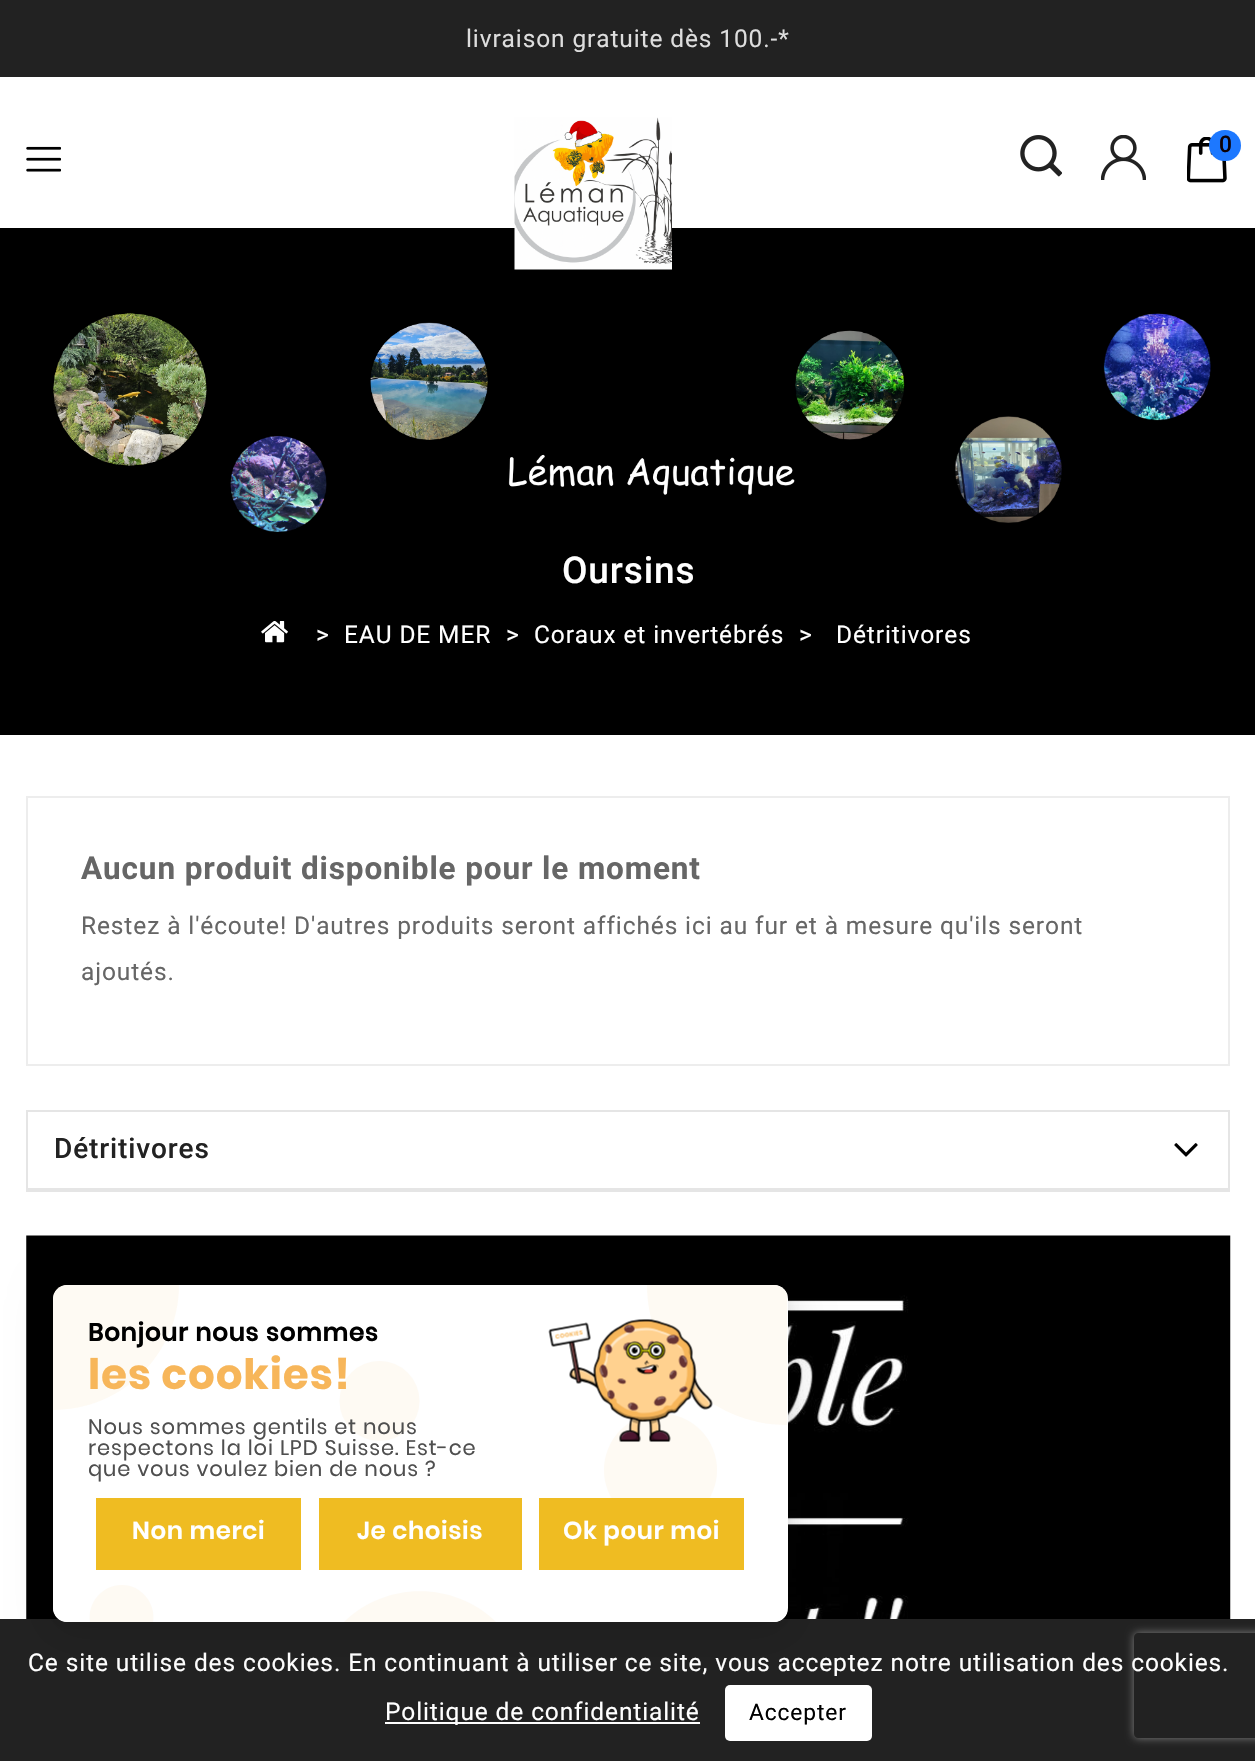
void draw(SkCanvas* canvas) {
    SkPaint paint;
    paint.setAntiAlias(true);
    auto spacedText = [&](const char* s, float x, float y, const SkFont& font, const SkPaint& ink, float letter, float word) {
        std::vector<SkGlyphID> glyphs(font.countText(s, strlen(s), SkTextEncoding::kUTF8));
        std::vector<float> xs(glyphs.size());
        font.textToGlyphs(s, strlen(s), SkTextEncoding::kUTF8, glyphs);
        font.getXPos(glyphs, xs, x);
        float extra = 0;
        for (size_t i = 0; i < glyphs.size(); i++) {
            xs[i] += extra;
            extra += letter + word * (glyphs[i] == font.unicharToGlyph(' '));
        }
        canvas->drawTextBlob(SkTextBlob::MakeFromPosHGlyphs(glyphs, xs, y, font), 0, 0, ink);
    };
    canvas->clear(0xFFFFFFFF);
    paint.setColor(0xFF222222);
    canvas->drawRect(SkRect::MakeXYWH(0, 0, 1255, 77), paint);
    SkFont font1(fontMgr->matchFamilyStyle("Roboto", SkFontStyle::Normal()), 24.5f);
    font1.setSubpixel(true);
    paint.setColor(0xFFDDDDDD);
    spacedText("livraison gratuite dès 100.-*", 466, 47, font1, paint, 0.88f, 0);
    paint.setColor(0xFF000000);
    canvas->drawRect(SkRect::MakeXYWH(0, 228, 1255, 507), paint);
    canvas->drawImageRect(SkImages::DeferredFromEncodedData(SkData::MakeFromFileName("img1.png")), SkRect::MakeXYWH(514, 117, 158, 153), SkSamplingOptions());
    canvas->drawImageRect(SkImages::DeferredFromEncodedData(SkData::MakeFromFileName("img2.png")), SkRect::MakeXYWH(1020, 135, 42, 42), SkSamplingOptions());
    canvas->drawImageRect(SkImages::DeferredFromEncodedData(SkData::MakeFromFileName("img3.png")), SkRect::MakeXYWH(1101, 135, 45, 45), SkSamplingOptions());
    canvas->drawImageRect(SkImages::DeferredFromEncodedData(SkData::MakeFromFileName("img4.png")), SkRect::MakeXYWH(1187, 137, 40, 46), SkSamplingOptions());
    paint.setColor(0xFF1D78FF);
    canvas->drawRoundRect(SkRect::MakeXYWH(1209, 130, 32, 31), 15.5f, 15.5f, paint);
    SkFont font2(fontMgr->matchFamilyStyle("Roboto", SkFontStyle(500, SkFontStyle::kNormal_Width, SkFontStyle::kUpright_Slant)), 22.75f);
    font2.setSubpixel(true);
    paint.setColor(0xFF0D0003);
    canvas->drawString("0", 1219, 152, font2, paint);
    canvas->drawImageRect(SkImages::DeferredFromEncodedData(SkData::MakeFromFileName("img5.png")), SkRect::MakeXYWH(26, 146, 35, 26), SkSamplingOptions());
    canvas->drawImageRect(SkImages::DeferredFromEncodedData(SkData::MakeFromFileName("img6.png")), SkRect::MakeXYWH(53, 313, 1158, 219), SkSamplingOptions());
    SkFont font3(fontMgr->matchFamilyStyle("Roboto", SkFontStyle(500, SkFontStyle::kNormal_Width, SkFontStyle::kUpright_Slant)), 37);
    font3.setSubpixel(true);
    paint.setColor(0xFFFFFFFF);
    spacedText("Oursins", 562, 583, font3, paint, 0.88f, 0);
    canvas->drawImageRect(SkImages::DeferredFromEncodedData(SkData::MakeFromFileName("img7.png")), SkRect::MakeXYWH(261, 621, 27, 22), SkSamplingOptions());
    spacedText(">", 316, 643, font1, paint, 0.88f, 0);
    spacedText("EAU DE MER", 344, 643, font1, paint, 0.88f, 0);
    spacedText(">", 506, 643, font1, paint, 0.88f, 0);
    spacedText("Coraux et invertébrés", 534, 643, font1, paint, 0.88f, 0);
    spacedText(">", 799, 643, font1, paint, 0.88f, 0);
    spacedText("Détritivores", 836, 643, font1, paint, 0.88f, 0);
    paint.setStyle(SkPaint::kStroke_Style);
    paint.setStrokeWidth(2);
    paint.setColor(0xFFEDEDED);
    canvas->drawRect(SkRect::MakeXYWH(27, 797, 1202, 268), paint);
    SkFont font4(fontMgr->matchFamilyStyle("Roboto", SkFontStyle::Bold()), 31.5f);
    font4.setSubpixel(true);
    paint.setStyle(SkPaint::kFill_Style);
    paint.setColor(0xFF666666);
    spacedText("Aucun produit disponible pour le moment", 81, 879, font4, paint, 0.88f, 0);
    spacedText("Restez à l'écoute! D'autres produits seront affichés ici au fur et à mesure qu'ils seront", 81, 934, font1, paint, 0.88f, 0);
    spacedText("ajoutés.", 81, 980, font1, paint, 0.88f, 0);
    paint.setStyle(SkPaint::kStroke_Style);
    paint.setColor(0xFFE5E5E5);
    canvas->drawRect(SkRect::MakeXYWH(27, 1111, 1202, 80), paint);
    paint.setStyle(SkPaint::kFill_Style);
    canvas->drawRect(SkRect::MakeXYWH(28, 1188, 1201, 2), paint);
    SkFont font5(fontMgr->matchFamilyStyle("Roboto", SkFontStyle(500, SkFontStyle::kNormal_Width, SkFontStyle::kUpright_Slant)), 28);
    font5.setSubpixel(true);
    paint.setColor(0xFF222222);
    spacedText("Détritivores", 54, 1158, font5, paint, 0.88f, 0);
    canvas->drawImageRect(SkImages::DeferredFromEncodedData(SkData::MakeFromFileName("img8.png")), SkRect::MakeXYWH(1174, 1143, 24, 14), SkSamplingOptions());
    canvas->drawImageRect(SkImages::DeferredFromEncodedData(SkData::MakeFromFileName("img9.png")), SkRect::MakeXYWH(26, 1235, 1205, 384), SkSamplingOptions());
    canvas->drawRect(SkRect::MakeXYWH(0, 1619, 1255, 142), paint);
    canvas->save();
    canvas->clipPath(SkPathBuilder(SkPathFillType::kEvenOdd).moveTo(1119, 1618).lineTo(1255, 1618).lineTo(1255, 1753).lineTo(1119, 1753).close().moveTo(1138, 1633).lineTo(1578, 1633).cubicTo(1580, 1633, 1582, 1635, 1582, 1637).lineTo(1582, 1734).cubicTo(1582, 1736, 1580, 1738, 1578, 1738).lineTo(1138, 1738).cubicTo(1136, 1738, 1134, 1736, 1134, 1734).lineTo(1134, 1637).cubicTo(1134, 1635, 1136, 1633, 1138, 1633).close().detach(), true);
    paint.setColor(0xFF808080);
    paint.setMaskFilter(SkMaskFilter::MakeBlur(kNormal_SkBlurStyle, 4.5f));
    canvas->drawRoundRect(SkRect::MakeXYWH(1134, 1633, 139, 105), 4, 4, paint);
    paint.setMaskFilter(nullptr);
    canvas->restore();
    paint.setColor(0xFFFFFFFF);
    spacedText("Ce site utilise des cookies. En continuant à utiliser ce site, vous acceptez notre utilisation des cookies.", 28, 1671, font1, paint, 0.88f, 0);
    canvas->drawRect(SkRect::MakeXYWH(385, 1722, 315, 2), paint);
    spacedText("Politique de confidentialité", 385, 1720, font1, paint, 0.88f, 0);
    canvas->drawRoundRect(SkRect::MakeXYWH(725, 1685, 147, 56), 5, 5, paint);
    SkFont font6(fontMgr->matchFamilyStyle("Roboto", SkFontStyle::Normal()), 22.75f);
    font6.setSubpixel(true);
    paint.setColor(0xFF000000);
    spacedText("Accepter", 749, 1720, font6, paint, 0.88f, 0);
    paint.setColor(0x0D000000);
    paint.setMaskFilter(SkMaskFilter::MakeBlur(kNormal_SkBlurStyle, 5));
    canvas->drawRoundRect(SkRect::MakeXYWH(53, 1288, 735, 338), 14, 14, paint);
    paint.setMaskFilter(nullptr);
    paint.setColor(0x26000000);
    paint.setMaskFilter(SkMaskFilter::MakeBlur(kNormal_SkBlurStyle, 21));
    canvas->drawRoundRect(SkRect::MakeXYWH(53, 1292, 735, 337), 14, 14, paint);
    paint.setMaskFilter(nullptr);
    paint.setColor(0xFFFFFFFF);
    canvas->drawRoundRect(SkRect::MakeXYWH(53, 1285, 735, 337), 14, 14, paint);
    canvas->save();
    canvas->clipPath(SkPathBuilder().moveTo(67, 1285).lineTo(774, 1285).cubicTo(781.5f, 1285, 788, 1291.5f, 788, 1299).lineTo(788, 1608).cubicTo(788, 1615.5f, 781.5f, 1622, 774, 1622).lineTo(67, 1622).cubicTo(59.5f, 1622, 53, 1615.5f, 53, 1608).lineTo(53, 1299).cubicTo(53, 1291.5f, 59.5f, 1285, 67, 1285).close().detach(), true);
    canvas->drawPath(SkPathBuilder().moveTo(67, 1285).lineTo(787, 1285).lineTo(787, 1622).lineTo(67, 1622).cubicTo(59.5f, 1622, 53, 1615.5f, 53, 1608).lineTo(53, 1299).cubicTo(53, 1291.5f, 59.5f, 1285, 67, 1285).close().detach(), paint);
    canvas->restore();
    paint.setColor(0xFFFEFAF3);
    canvas->drawPath(SkPathBuilder().moveTo(122, 1585).cubicTo(141, 1585, 156, 1603, 153, 1622).lineTo(90, 1622).cubicTo(87, 1603, 102, 1585, 122, 1585).close().detach(), paint);
    canvas->drawCircle(379.5f, 1401, 40, paint);
    canvas->drawPath(SkPathBuilder().moveTo(496, 1622).lineTo(344, 1622).cubicTo(386, 1581, 454, 1581, 496, 1622).close().detach(), paint);
    canvas->drawCircle(660.5f, 1470, 56.5f, paint);
    paint.setColor(0x12F7B65A);
    canvas->drawPath(SkPathBuilder().moveTo(179, 1285).lineTo(67, 1285).cubicTo(59, 1285, 53, 1291, 53, 1299).lineTo(53, 1410).cubicTo(122, 1410, 179, 1354, 179, 1285).close().detach(), paint);
    canvas->drawPath(SkPathBuilder().moveTo(787, 1425).lineTo(787, 1294).cubicTo(785, 1289, 780, 1285, 774, 1285).lineTo(647, 1285).cubicTo(647, 1362, 710, 1425, 787, 1425).close().detach(), paint);
    SkFont font7(fontMgr->matchFamilyStyle("Poppins", SkFontStyle::Bold()), 24.5f);
    font7.setSubpixel(true);
    paint.setColor(0xFF000000);
    spacedText("Bonjour nous sommes", 88, 1341, font7, paint, 0.88f, 0);
    canvas->drawImageRect(SkImages::DeferredFromEncodedData(SkData::MakeFromFileName("img10.png")), SkRect::MakeXYWH(548, 1319, 165, 123), SkSamplingOptions());
    SkFont font8(fontMgr->matchFamilyStyle("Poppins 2", SkFontStyle::Bold()), 42);
    font8.setSubpixel(true);
    paint.setColor(0xFFF7B65A);
    spacedText("les cookies!", 88, 1389, font8, paint, 0.88f, 0);
    SkFont font9(fontMgr->matchFamilyStyle("Poppins", SkFontStyle::Normal()), 21);
    font9.setSubpixel(true);
    paint.setColor(0xFF4F4F4F);
    spacedText("Nous sommes gentils et nous", 88, 1434, font9, paint, 0.88f, 0);
    spacedText("respectons la loi LPD Suisse. Est-ce", 88, 1455, font9, paint, 0.88f, 0);
    spacedText("que vous voulez bien de nous ?", 88, 1476, font9, paint, 0.88f, 0);
    paint.setColor(0xFFEFBC22);
    canvas->drawRect(SkRect::MakeXYWH(96, 1498, 205, 72), paint);
    SkFont font10(fontMgr->matchFamilyStyle("Poppins", SkFontStyle(600, SkFontStyle::kNormal_Width, SkFontStyle::kUpright_Slant)), 24.5f);
    font10.setSubpixel(true);
    paint.setColor(0xFFFFFFFF);
    spacedText("Non merci", 132, 1539, font10, paint, 0.6f, 0);
    paint.setColor(0xFFEFBC22);
    canvas->drawRect(SkRect::MakeXYWH(319, 1498, 203, 72), paint);
    paint.setColor(0xFFFFFFFF);
    spacedText("Je choisis", 357, 1539, font10, paint, 0.6f, 0);
    paint.setColor(0xFFEFBC22);
    canvas->drawRect(SkRect::MakeXYWH(539, 1498, 205, 72), paint);
    paint.setColor(0xFFFFFFFF);
    spacedText("Ok pour moi", 563, 1539, font10, paint, 0.6f, 0);
}
